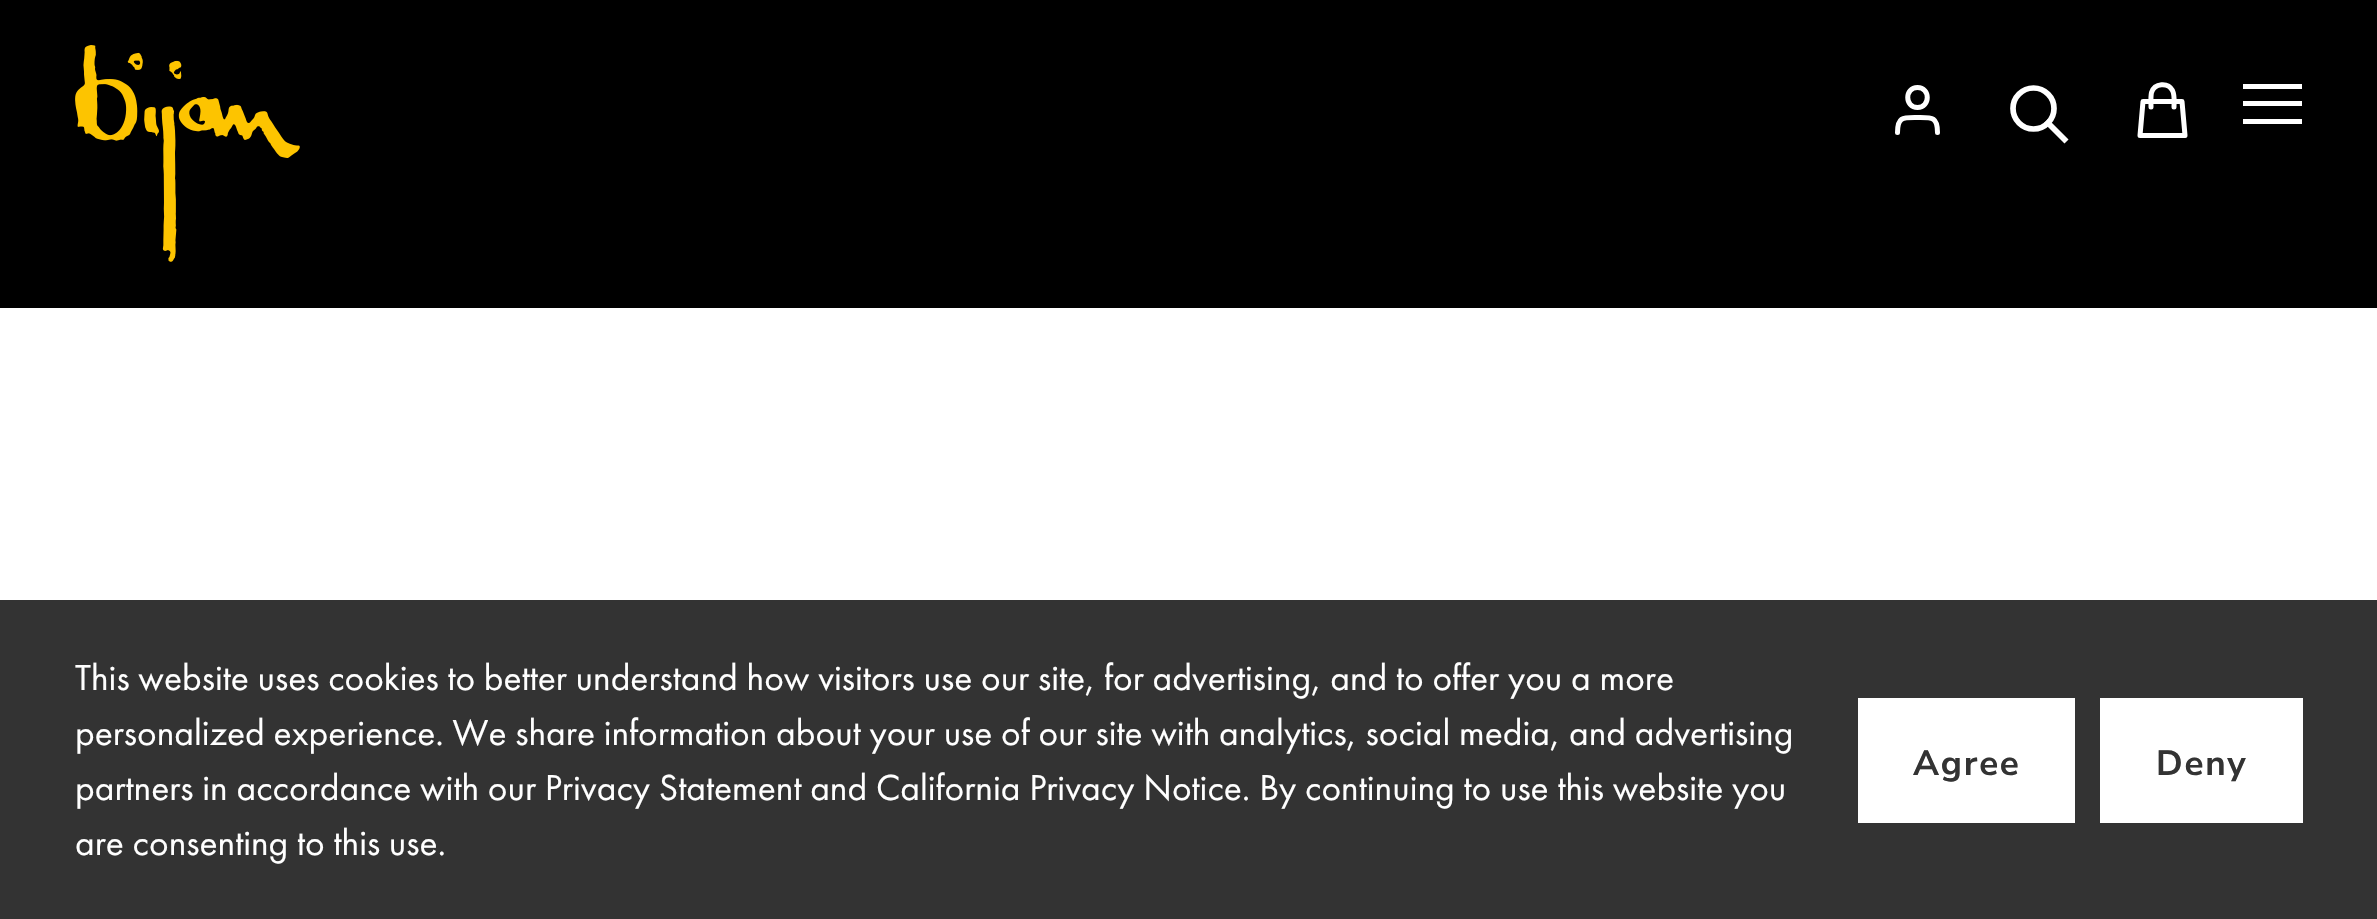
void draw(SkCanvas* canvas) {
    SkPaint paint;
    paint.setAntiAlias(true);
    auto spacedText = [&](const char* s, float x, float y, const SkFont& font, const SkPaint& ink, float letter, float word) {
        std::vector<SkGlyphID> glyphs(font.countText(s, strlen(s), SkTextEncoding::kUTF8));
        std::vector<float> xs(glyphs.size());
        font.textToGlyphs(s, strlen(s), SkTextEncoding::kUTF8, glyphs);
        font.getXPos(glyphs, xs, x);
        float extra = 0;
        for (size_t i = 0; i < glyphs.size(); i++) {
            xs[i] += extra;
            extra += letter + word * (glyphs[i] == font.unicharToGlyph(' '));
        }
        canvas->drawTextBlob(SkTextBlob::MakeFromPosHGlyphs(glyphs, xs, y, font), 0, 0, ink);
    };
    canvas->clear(0xFFFFFFFF);
    paint.setColor(0xFF000000);
    canvas->drawRect(SkRect::MakeXYWH(0, 0, 2377, 308), paint);
    canvas->drawImageRect(SkImages::DeferredFromEncodedData(SkData::MakeFromFileName("img1.png")), SkRect::MakeXYWH(75, 45, 225, 217), SkSamplingOptions());
    paint.setStyle(SkPaint::kStroke_Style);
    paint.setStrokeWidth(5);
    paint.setStrokeCap(SkPaint::kRound_Cap);
    paint.setStrokeJoin(SkPaint::kRound_Join);
    paint.setColor(0xFFFFFFFF);
    canvas->drawPath(SkPathBuilder().moveTo(1937.5f, 132.5f).cubicTo(1937.5f, 116.5f, 1932, 117.5f, 1917.5f, 117.5f).cubicTo(1903, 117.5f, 1897.5f, 116.5f, 1897.5f, 132.5f).moveTo(1917.5f, 107.5f).cubicTo(1930.5f, 107.5f, 1930.5f, 87.5f, 1917.5f, 87.5f).cubicTo(1904.5f, 87.5f, 1904.5f, 107.5f, 1917.5f, 107.5f).close().detach(), paint);
    paint.setStrokeWidth(5.7f);
    paint.setStrokeCap(SkPaint::kSquare_Cap);
    paint.setStrokeJoin(SkPaint::kMiter_Join);
    canvas->drawPath(SkPathBuilder().moveTo(2064.5f, 139.5f).lineTo(2048, 123).detach(), paint);
    paint.setStrokeCap(SkPaint::kButt_Cap);
    canvas->drawCircle(2033.5f, 108.5f, 20.5f, paint);
    paint.setStrokeWidth(5);
    paint.setStrokeCap(SkPaint::kRound_Cap);
    paint.setStrokeJoin(SkPaint::kRound_Join);
    canvas->drawPath(SkPathBuilder().moveTo(2174, 107).cubicTo(2174, 102, 2175, 95.5f, 2172.5f, 90.5f).cubicTo(2168, 82, 2154.5f, 83, 2151.5f, 92.5f).cubicTo(2150.5f, 97, 2151, 102.5f, 2151, 107).moveTo(2143, 101.5f).lineTo(2182, 101.5f).lineTo(2185, 135.5f).lineTo(2140, 135.5f).close().detach(), paint);
    canvas->save();
    canvas->clipRect(SkRect::MakeXYWH(2243, 83, 60, 42));
    paint.setStyle(SkPaint::kFill_Style);
    canvas->drawPath(SkPathBuilder().moveTo(2242, 124).lineTo(2242, 119).lineTo(2302, 119).lineTo(2302, 124).close().moveTo(2242, 101).lineTo(2302, 101).lineTo(2302, 106).lineTo(2242, 106).close().moveTo(2242, 84).lineTo(2302, 84).lineTo(2302, 89).lineTo(2242, 89).close().detach(), paint);
    canvas->restore();
    canvas->drawImageRect(SkImages::DeferredFromEncodedData(SkData::MakeFromFileName("img2.png")), SkRect::MakeXYWH(0, 308, 2377, 292), SkSamplingOptions());
    paint.setColor(0xFF333333);
    canvas->drawRect(SkRect::MakeXYWH(0, 600, 2377, 319), paint);
    SkFont font1(fontMgr->matchFamilyStyle("Futura PT", SkFontStyle::Normal()), 37.5f);
    font1.setSubpixel(true);
    paint.setColor(0xFFFFFFFF);
    canvas->drawString("This website uses cookies to better understand how visitors use our site, for advertising, and to offer you a more", 75, 690, font1, paint);
    canvas->drawString("personalized experience. We share information about your use of our site with analytics, social media, and advertising", 75, 745, font1, paint);
    canvas->drawString("partners in accordance with our Privacy Statement and California Privacy Notice. By continuing to use this website you", 75, 800, font1, paint);
    canvas->drawString("are consenting to this use.", 75, 855, font1, paint);
    canvas->drawRect(SkRect::MakeXYWH(1858, 698, 217, 125), paint);
    SkFont font2(fontMgr->matchFamilyStyle("Nunito Sans", SkFontStyle::Bold()), 35);
    font2.setSubpixel(true);
    paint.setColor(0xFF333333);
    spacedText("Agree", 1913, 775, font2, paint, 1.75f, 0);
    paint.setColor(0xFFFFFFFF);
    canvas->drawRect(SkRect::MakeXYWH(2100, 698, 203, 125), paint);
    paint.setColor(0xFF333333);
    spacedText("Deny", 2156, 775, font2, paint, 1.75f, 0);
}
